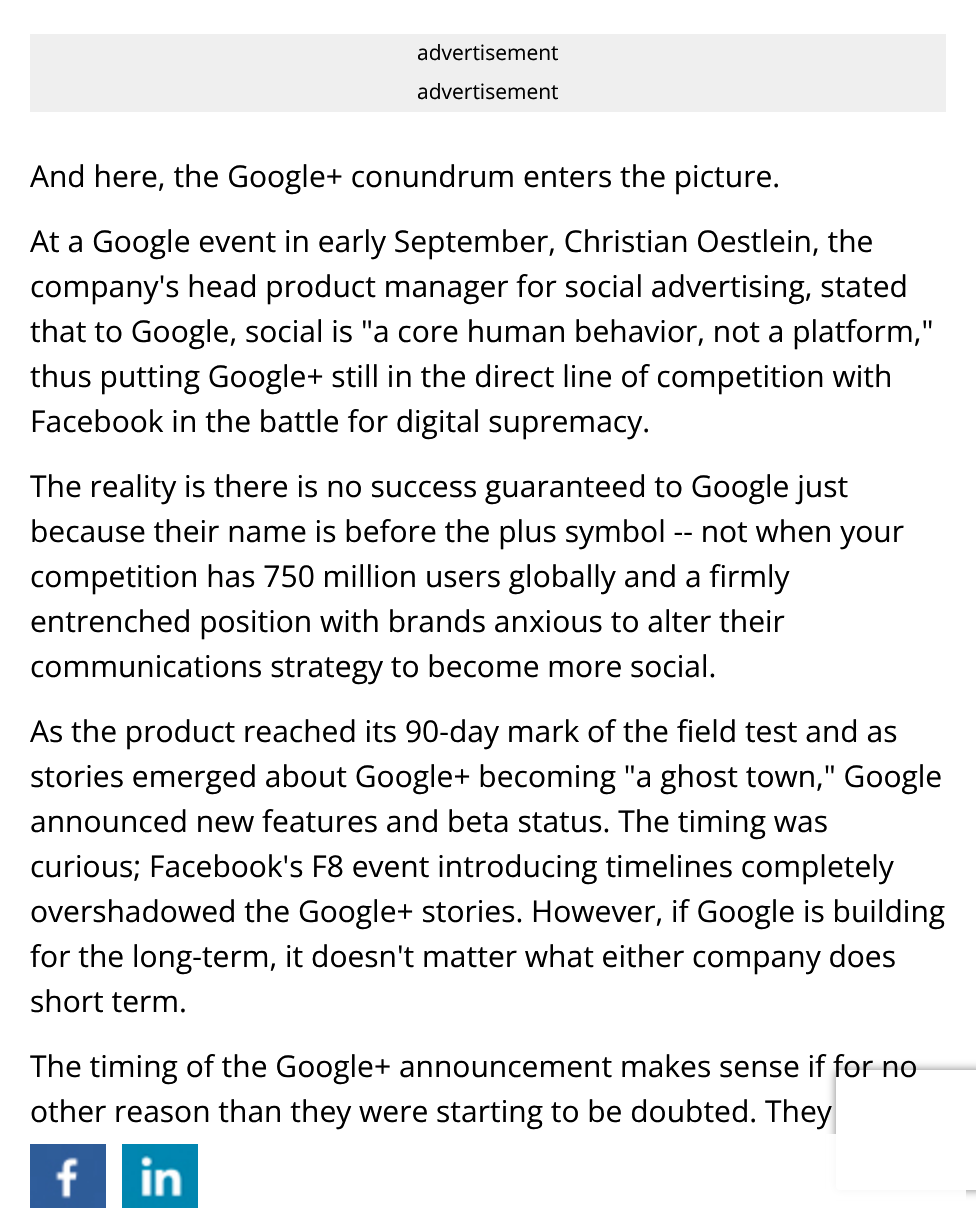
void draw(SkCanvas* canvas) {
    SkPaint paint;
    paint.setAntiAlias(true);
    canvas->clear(0xFFFFFFFF);
    paint.setColor(0xFFEFEFEF);
    canvas->drawRect(SkRect::MakeXYWH(30, 34, 916, 78), paint);
    SkFont font1(fontMgr->matchFamilyStyle("Open Sans", SkFontStyle::Normal()), 21);
    font1.setSubpixel(true);
    paint.setColor(0xFF000000);
    canvas->drawString("advertisement", 417, 60, font1, paint);
    canvas->drawString("advertisement", 417, 99, font1, paint);
    SkFont font2(fontMgr->matchFamilyStyle("Open Sans", SkFontStyle::Normal()), 30);
    font2.setSubpixel(true);
    canvas->drawString("And here, the Google+ conundrum enters the picture.", 30, 187, font2, paint);
    canvas->drawString("At a Google event in early September, Christian Oestlein, the", 30, 252, font2, paint);
    canvas->drawString("company's head product manager for social advertising, stated", 30, 297, font2, paint);
    canvas->drawString("that to Google, social is \"a core human behavior, not a platform,\"", 30, 342, font2, paint);
    canvas->drawString("thus putting Google+ still in the direct line of competition with", 30, 387, font2, paint);
    canvas->drawString("Facebook in the battle for digital supremacy.", 30, 432, font2, paint);
    canvas->drawString("The reality is there is no success guaranteed to Google just", 30, 497, font2, paint);
    canvas->drawString("because their name is before the plus symbol -- not when your", 30, 542, font2, paint);
    canvas->drawString("competition has 750 million users globally and a firmly", 30, 587, font2, paint);
    canvas->drawString("entrenched position with brands anxious to alter their", 30, 632, font2, paint);
    canvas->drawString("communications strategy to become more social.", 30, 677, font2, paint);
    canvas->drawString("As the product reached its 90-day mark of the field test and as", 30, 742, font2, paint);
    canvas->drawString("stories emerged about Google+ becoming \"a ghost town,\" Google", 30, 787, font2, paint);
    canvas->drawString("announced new features and beta status. The timing was", 30, 832, font2, paint);
    canvas->drawString("curious; Facebook's F8 event introducing timelines completely", 30, 877, font2, paint);
    canvas->drawString("overshadowed the Google+ stories. However, if Google is building", 30, 922, font2, paint);
    canvas->drawString("for the long-term, it doesn't matter what either company does", 30, 967, font2, paint);
    canvas->drawString("short term.", 30, 1012, font2, paint);
    canvas->save();
    canvas->clipPath(SkPathBuilder(SkPathFillType::kEvenOdd).moveTo(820, 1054).lineTo(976, 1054).lineTo(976, 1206).lineTo(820, 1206).close().moveTo(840, 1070).lineTo(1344, 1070).cubicTo(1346, 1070, 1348, 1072, 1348, 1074).lineTo(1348, 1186).cubicTo(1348, 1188, 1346, 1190, 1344, 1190).lineTo(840, 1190).cubicTo(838, 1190, 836, 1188, 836, 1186).lineTo(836, 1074).cubicTo(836, 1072, 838, 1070, 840, 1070).close().detach(), true);
    paint.setColor(0xFF808080);
    paint.setMaskFilter(SkMaskFilter::MakeBlur(kNormal_SkBlurStyle, 5));
    canvas->drawRoundRect(SkRect::MakeXYWH(836, 1070, 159, 120), 4, 4, paint);
    paint.setMaskFilter(nullptr);
    canvas->restore();
    paint.setColor(0xFF000000);
    canvas->drawString("The timing of the Google+ announcement makes sense if for no", 30, 1077, font2, paint);
    canvas->drawString("other reason than they were starting to be doubted. They", 30, 1122, font2, paint);
    paint.setColor(0xE6FFFFFF);
    canvas->drawRect(SkRect::MakeXYWH(826, 1134, 140, 66), paint);
    canvas->drawImageRect(SkImages::DeferredFromEncodedData(SkData::MakeFromFileName("img1.png")), SkRect::MakeXYWH(30, 1144, 76, 64), SkSamplingOptions());
    canvas->drawImageRect(SkImages::DeferredFromEncodedData(SkData::MakeFromFileName("img2.png")), SkRect::MakeXYWH(122, 1144, 76, 64), SkSamplingOptions());
}
